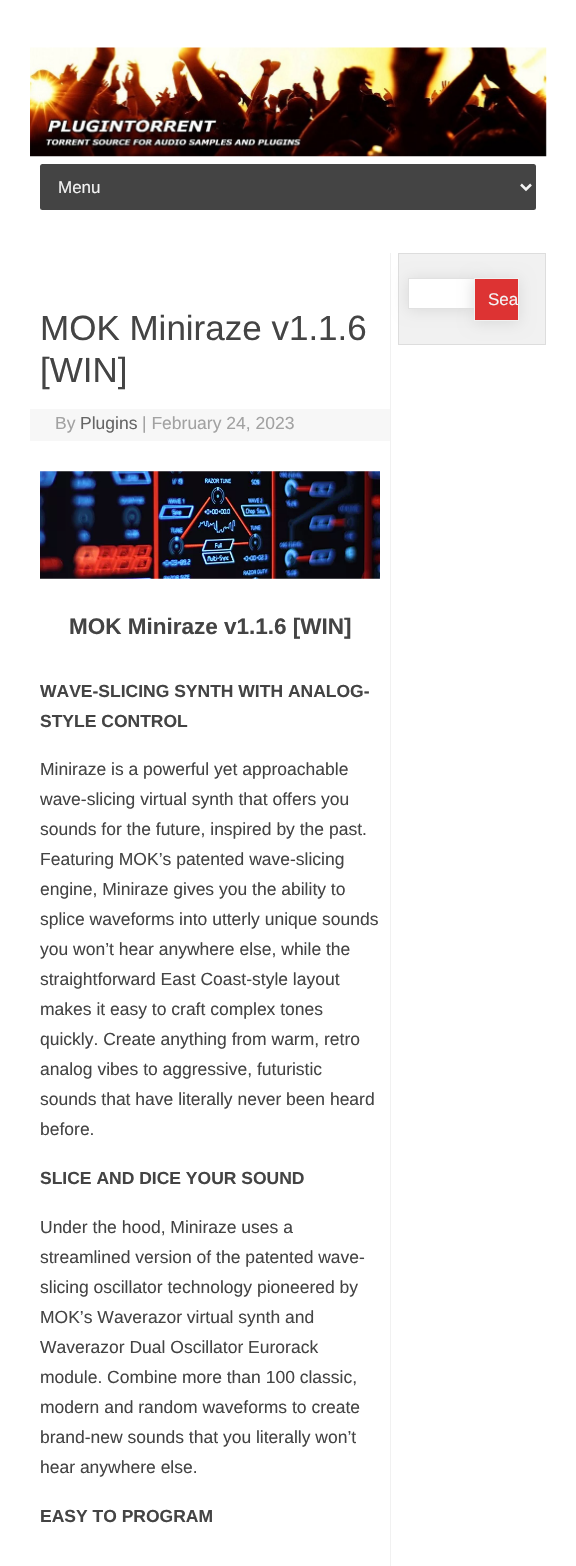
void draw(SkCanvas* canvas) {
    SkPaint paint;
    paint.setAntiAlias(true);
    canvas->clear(0xFFFFFFFF);
    canvas->drawImageRect(SkImages::DeferredFromEncodedData(SkData::MakeFromFileName("img1.png")), SkRect::MakeXYWH(30, 47, 517, 110), SkSamplingOptions());
    paint.setColor(0xFF444444);
    canvas->drawRoundRect(SkRect::MakeXYWH(40, 164, 496, 46), 2.5f, 2.5f, paint);
    paint.setStyle(SkPaint::kStroke_Style);
    paint.setStrokeWidth(2.5f);
    paint.setColor(0xFFF3F3F3);
    canvas->drawPath(SkPathBuilder().moveTo(521, 184.5f).lineTo(526, 189.5f).lineTo(531, 184.5f).detach(), paint);
    SkFont font1(fontMgr->matchFamilyStyle("Liberation Sans", SkFontStyle::Normal()), 17);
    font1.setSubpixel(true);
    paint.setStyle(SkPaint::kFill_Style);
    canvas->drawString("Menu", 58, 193, font1, paint);
    paint.setColor(0xFFF1F1F1);
    canvas->drawRect(SkRect::MakeXYWH(398.5f, 253.5f, 147, 91), paint);
    paint.setStyle(SkPaint::kStroke_Style);
    paint.setStrokeWidth(1);
    paint.setColor(0xFFDDDDDD);
    canvas->drawRect(SkRect::MakeXYWH(398.5f, 253.5f, 147, 91), paint);
    paint.setStyle(SkPaint::kFill_Style);
    paint.setColor(0xFFF1F1F1);
    canvas->drawRect(SkRect::MakeXYWH(390, 253, 1, 1313), paint);
    paint.setColor(0xFFD9D9D9);
    paint.setMaskFilter(SkMaskFilter::MakeBlur(kNormal_SkBlurStyle, 7.5f));
    canvas->drawRect(SkRect::MakeXYWH(408, 279, 71, 31), paint);
    paint.setMaskFilter(nullptr);
    paint.setColor(0xFFFFFFFF);
    canvas->drawRect(SkRect::MakeXYWH(409, 279, 65, 29), paint);
    paint.setStyle(SkPaint::kStroke_Style);
    paint.setColor(0xFFE1E1E1);
    canvas->drawRect(SkRect::MakeXYWH(408.5f, 278.5f, 70, 30), paint);
    paint.setStyle(SkPaint::kFill_Style);
    paint.setColor(0xFFD9D9D9);
    paint.setMaskFilter(SkMaskFilter::MakeBlur(kNormal_SkBlurStyle, 7.5f));
    canvas->drawRect(SkRect::MakeXYWH(474, 279, 45, 44), paint);
    paint.setMaskFilter(nullptr);
    paint.setColor(0xFFDD3333);
    canvas->drawRect(SkRect::MakeXYWH(474.5f, 278.5f, 44, 42), paint);
    paint.setStyle(SkPaint::kStroke_Style);
    paint.setColor(0xFFF1F1F1);
    canvas->drawRect(SkRect::MakeXYWH(474.5f, 278.5f, 44, 42), paint);
    paint.setStyle(SkPaint::kFill_Style);
    paint.setColor(0xFFF3F3F3);
    canvas->drawString("Sea", 488, 305, font1, paint);
    SkFont font2(fontMgr->matchFamilyStyle("Liberation Sans", SkFontStyle::Normal()), 35);
    font2.setSubpixel(true);
    paint.setColor(0xFF444444);
    canvas->drawString("MOK Miniraze v1.1.6", 40, 340, font2, paint);
    canvas->drawString("[WIN]", 40, 382, font2, paint);
    paint.setColor(0xFFF7F7F7);
    canvas->drawRect(SkRect::MakeXYWH(30, 409, 360, 32), paint);
    SkFont font3(fontMgr->matchFamilyStyle("Liberation Sans", SkFontStyle::Normal()), 17.5f);
    font3.setSubpixel(true);
    paint.setColor(0xFFA2A2A2);
    canvas->drawString("By", 55, 429, font3, paint);
    paint.setColor(0xFF666666);
    canvas->drawString("Plugins", 80, 429, font3, paint);
    paint.setColor(0xFFA2A2A2);
    canvas->drawString("| February 24, 2023", 142, 429, font3, paint);
    canvas->drawImageRect(SkImages::DeferredFromEncodedData(SkData::MakeFromFileName("img2.png")), SkRect::MakeXYWH(40, 471, 340, 108), SkSamplingOptions());
    SkFont font4(fontMgr->matchFamilyStyle("Liberation Sans", SkFontStyle::Bold()), 22.5f);
    font4.setSubpixel(true);
    paint.setColor(0xFF444444);
    canvas->drawString("MOK Miniraze v1.1.6 [WIN]", 69, 634, font4, paint);
    SkFont font5(fontMgr->matchFamilyStyle("Liberation Sans", SkFontStyle::Bold()), 17.5f);
    font5.setSubpixel(true);
    canvas->drawString("WAVE-SLICING SYNTH WITH ANALOG-", 40, 697, font5, paint);
    canvas->drawString("STYLE CONTROL", 40, 727, font5, paint);
    canvas->drawString("Miniraze is a powerful yet approachable", 40, 775, font3, paint);
    canvas->drawString("wave-slicing virtual synth that offers you", 40, 805, font3, paint);
    canvas->drawString("sounds for the future, inspired by the past.", 40, 835, font3, paint);
    canvas->drawString("Featuring MOK’s patented wave-slicing", 40, 865, font3, paint);
    canvas->drawString("engine, Miniraze gives you the ability to", 40, 895, font3, paint);
    canvas->drawString("splice waveforms into utterly unique sounds", 40, 925, font3, paint);
    canvas->drawString("you won’t hear anywhere else, while the", 40, 955, font3, paint);
    canvas->drawString("straightforward East Coast-style layout", 40, 985, font3, paint);
    canvas->drawString("makes it easy to craft complex tones", 40, 1015, font3, paint);
    canvas->drawString("quickly. Create anything from warm, retro", 40, 1045, font3, paint);
    canvas->drawString("analog vibes to aggressive, futuristic", 40, 1075, font3, paint);
    canvas->drawString("sounds that have literally never been heard", 40, 1105, font3, paint);
    canvas->drawString("before.", 40, 1135, font3, paint);
    canvas->drawString("SLICE AND DICE YOUR SOUND", 40, 1184, font5, paint);
    canvas->drawString("Under the hood, Miniraze uses a", 40, 1233, font3, paint);
    canvas->drawString("streamlined version of the patented wave-", 40, 1263, font3, paint);
    canvas->drawString("slicing oscillator technology pioneered by", 40, 1293, font3, paint);
    canvas->drawString("MOK’s Waverazor virtual synth and", 40, 1323, font3, paint);
    canvas->drawString("Waverazor Dual Oscillator Eurorack", 40, 1353, font3, paint);
    canvas->drawString("module. Combine more than 100 classic,", 40, 1383, font3, paint);
    canvas->drawString("modern and random waveforms to create", 40, 1413, font3, paint);
    canvas->drawString("brand-new sounds that you literally won’t", 40, 1443, font3, paint);
    canvas->drawString("hear anywhere else.", 40, 1473, font3, paint);
    canvas->drawString("EASY TO PROGRAM", 40, 1522, font5, paint);
}
